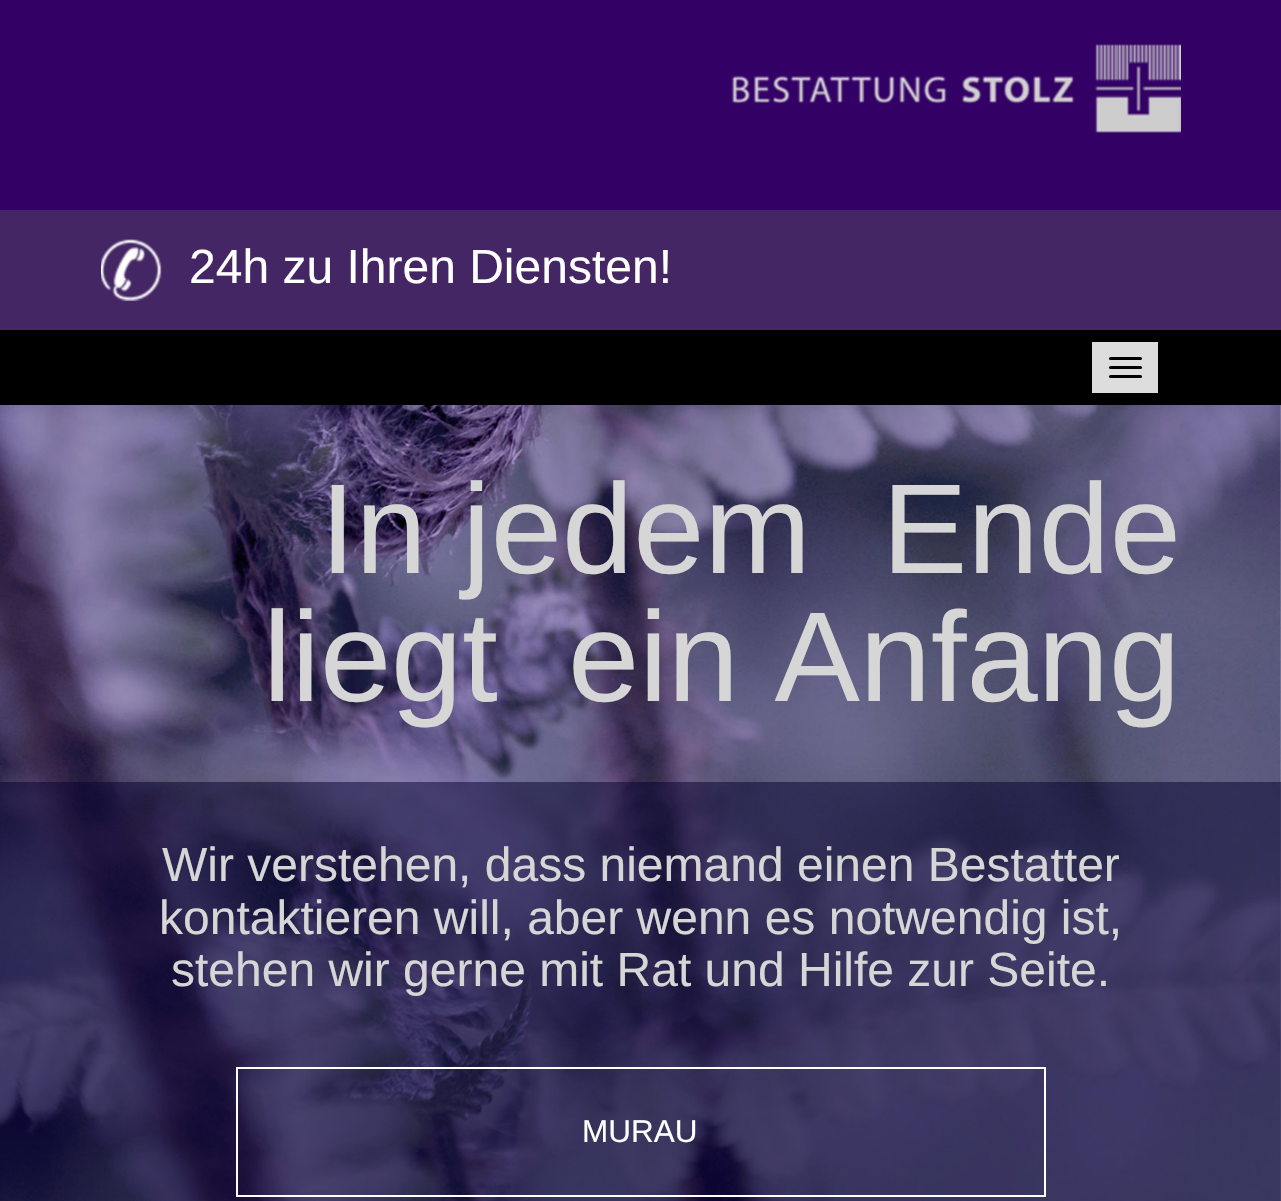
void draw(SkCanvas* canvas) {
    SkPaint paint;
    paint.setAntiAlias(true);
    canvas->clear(0xFFFFFFFF);
    canvas->drawImageRect(SkImages::DeferredFromEncodedData(SkData::MakeFromFileName("img3.png")), SkRect::MakeXYWH(0, 405, 1281, 796), SkSamplingOptions());
    paint.setColor(0x1F000000);
    paint.setMaskFilter(SkMaskFilter::MakeBlur(kNormal_SkBlurStyle, 7.5f));
    canvas->drawRect(SkRect::MakeXYWH(0, 0, 1281, 405), paint);
    paint.setMaskFilter(nullptr);
    paint.setColor(0xFF000000);
    canvas->drawRect(SkRect::MakeXYWH(0, 330, 1281, 75), paint);
    paint.setColor(0xFF330066);
    canvas->drawRect(SkRect::MakeXYWH(0, 0, 1281, 210), paint);
    canvas->drawImageRect(SkImages::DeferredFromEncodedData(SkData::MakeFromFileName("img1.png")), SkRect::MakeXYWH(731, 44, 450, 89), SkSamplingOptions());
    paint.setColor(0xFF452664);
    canvas->drawRect(SkRect::MakeXYWH(0, 210, 1281, 120), paint);
    canvas->drawImageRect(SkImages::DeferredFromEncodedData(SkData::MakeFromFileName("img2.png")), SkRect::MakeXYWH(101, 239, 61, 62), SkSamplingOptions());
    SkFont font1(fontMgr->matchFamilyStyle("Liberation Sans", SkFontStyle::Normal()), 48);
    font1.setSubpixel(true);
    paint.setColor(0xFFFFFFFF);
    canvas->drawString("24h zu Ihren Diensten!", 189, 283, font1, paint);
    paint.setColor(0xFFDDDDDD);
    canvas->drawRect(SkRect::MakeXYWH(1092, 342, 66, 51), paint);
    paint.setColor(0xFF000000);
    canvas->drawRoundRect(SkRect::MakeXYWH(1109, 357, 33, 3), 1.5f, 1.5f, paint);
    canvas->drawRoundRect(SkRect::MakeXYWH(1109, 366, 33, 3), 1.5f, 1.5f, paint);
    canvas->drawRoundRect(SkRect::MakeXYWH(1109, 375, 33, 3), 1.5f, 1.5f, paint);
    SkFont font2(fontMgr->matchFamilyStyle("Liberation Sans", SkFontStyle::Normal()), 128);
    font2.setSubpixel(true);
    paint.setColor(0xFFD6D6D6);
    canvas->drawString("In jedem", 320, 573, font2, paint);
    canvas->drawString("Ende", 882, 573, font2, paint);
    canvas->drawString("liegt", 263, 701, font2, paint);
    canvas->drawString("ein Anfang", 568, 701, font2, paint);
    paint.setColor(0x8004002D);
    canvas->drawRect(SkRect::MakeXYWH(0, 782, 1281, 232), paint);
    paint.setColor(0xFFD6D6D6);
    canvas->drawString("Wir verstehen, dass niemand einen Bestatter", 162, 881, font1, paint);
    canvas->drawString("kontaktieren will, aber wenn es notwendig ist,", 159, 934, font1, paint);
    canvas->drawString("stehen wir gerne mit Rat und Hilfe zur Seite.", 171, 986, font1, paint);
    paint.setColor(0x8004002D);
    canvas->drawRect(SkRect::MakeXYWH(0, 1014, 1281, 187), paint);
    paint.setStyle(SkPaint::kStroke_Style);
    paint.setStrokeWidth(2);
    paint.setColor(0xFFFFFFFF);
    canvas->drawRect(SkRect::MakeXYWH(237, 1068, 808, 128), paint);
    SkFont font3(fontMgr->matchFamilyStyle("Liberation Sans", SkFontStyle::Normal()), 31.5f);
    font3.setSubpixel(true);
    paint.setStyle(SkPaint::kFill_Style);
    canvas->drawString("MURAU", 582, 1142, font3, paint);
}
